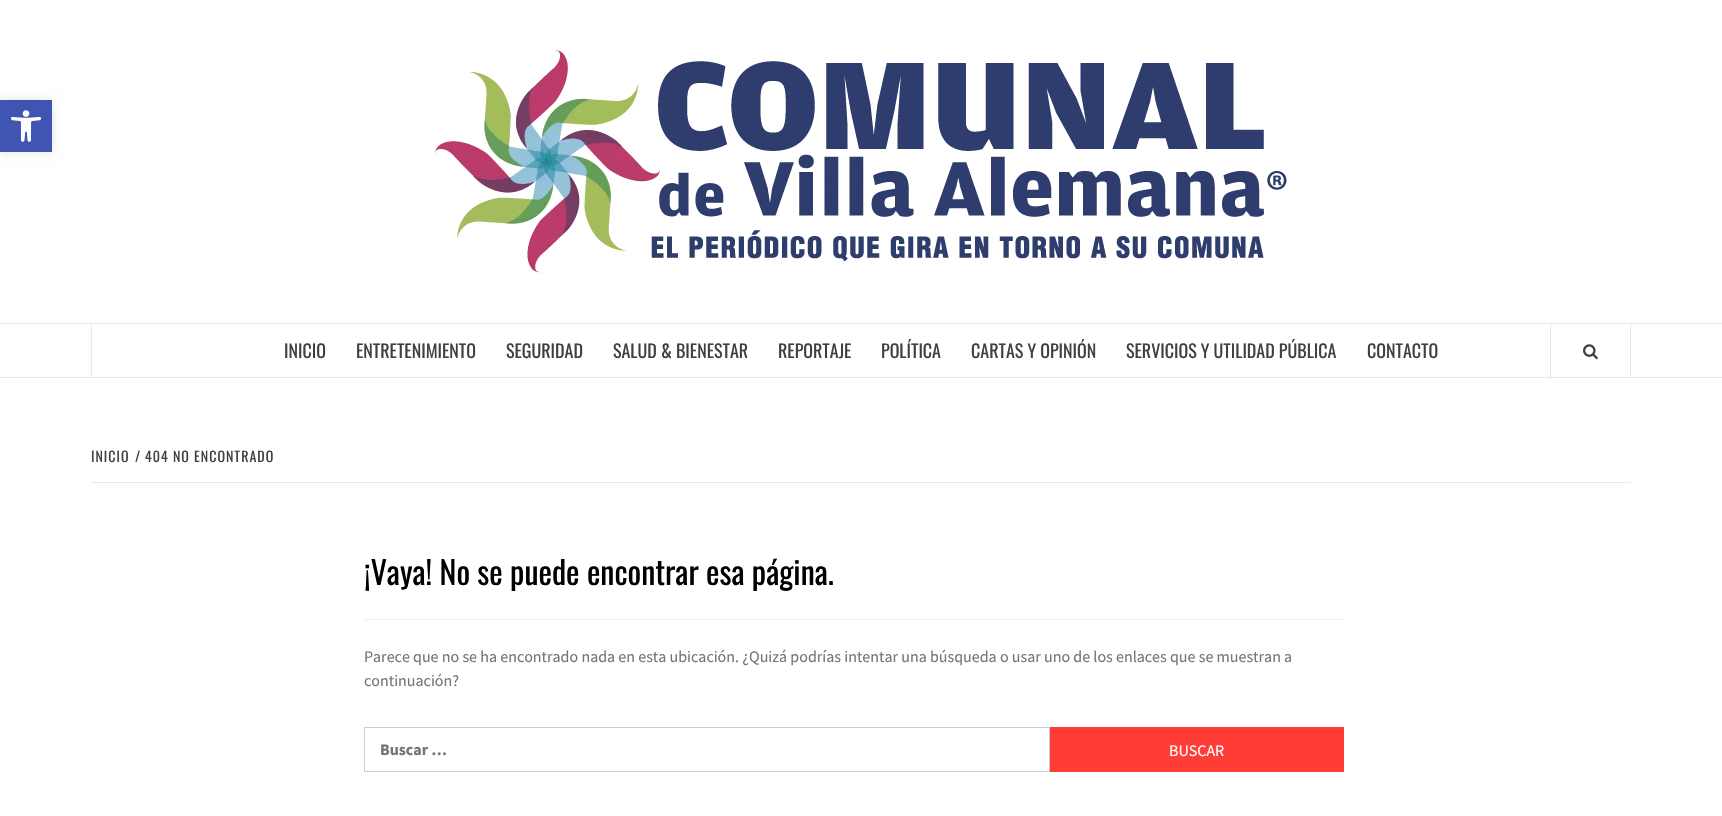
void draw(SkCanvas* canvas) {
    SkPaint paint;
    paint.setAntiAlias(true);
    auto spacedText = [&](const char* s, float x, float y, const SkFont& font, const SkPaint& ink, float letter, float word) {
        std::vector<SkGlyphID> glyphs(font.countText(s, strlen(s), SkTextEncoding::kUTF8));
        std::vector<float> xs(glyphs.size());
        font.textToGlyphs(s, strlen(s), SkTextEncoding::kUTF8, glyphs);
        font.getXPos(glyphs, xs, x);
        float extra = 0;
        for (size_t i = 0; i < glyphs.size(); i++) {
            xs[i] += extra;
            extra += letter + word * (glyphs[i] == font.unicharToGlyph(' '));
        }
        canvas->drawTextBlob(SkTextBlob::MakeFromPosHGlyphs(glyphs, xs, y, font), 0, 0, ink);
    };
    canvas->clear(0xFFFFFFFF);
    paint.setColor(0x1A000000);
    paint.setMaskFilter(SkMaskFilter::MakeBlur(kNormal_SkBlurStyle, 5));
    canvas->drawRect(SkRect::MakeXYWH(0, 100, 52, 52), paint);
    paint.setMaskFilter(nullptr);
    paint.setColor(0xFF4054B2);
    canvas->drawRect(SkRect::MakeXYWH(0, 100, 52, 52), paint);
    canvas->drawImageRect(SkImages::DeferredFromEncodedData(SkData::MakeFromFileName("img1.png")), SkRect::MakeXYWH(11, 110, 30, 32), SkSamplingOptions());
    canvas->drawImageRect(SkImages::DeferredFromEncodedData(SkData::MakeFromFileName("img2.png")), SkRect::MakeXYWH(435, 50, 852, 223), SkSamplingOptions());
    paint.setColor(0xFFE8E8E8);
    canvas->drawRect(SkRect::MakeXYWH(0, 323, 1722, 1), paint);
    canvas->drawRect(SkRect::MakeXYWH(0, 377, 1722, 1), paint);
    canvas->drawRect(SkRect::MakeXYWH(1630, 324, 1, 53), paint);
    canvas->drawRect(SkRect::MakeXYWH(91, 324, 1, 53), paint);
    SkFont font1(fontMgr->matchFamilyStyle("Oswald", SkFontStyle::Normal()), 18);
    font1.setSubpixel(true);
    paint.setColor(0xFF404040);
    canvas->drawString("INICIO", 284, 358, font1, paint);
    canvas->drawString("ENTRETENIMIENTO", 356, 358, font1, paint);
    canvas->drawString("SEGURIDAD", 506, 358, font1, paint);
    canvas->drawString("SALUD & BIENESTAR", 613, 358, font1, paint);
    canvas->drawString("REPORTAJE", 778, 358, font1, paint);
    canvas->drawString("POLÍTICA", 881, 358, font1, paint);
    canvas->drawString("CARTAS Y OPINIÓN", 971, 358, font1, paint);
    canvas->drawString("SERVICIOS Y UTILIDAD PÚBLICA", 1126, 358, font1, paint);
    canvas->drawString("CONTACTO", 1367, 358, font1, paint);
    paint.setColor(0xFFE8E8E8);
    canvas->drawRect(SkRect::MakeXYWH(1550, 324, 1, 55), paint);
    canvas->drawImageRect(SkImages::DeferredFromEncodedData(SkData::MakeFromFileName("img3.png")), SkRect::MakeXYWH(1583, 344, 15, 16), SkSamplingOptions());
    canvas->drawRect(SkRect::MakeXYWH(91, 482, 1540, 1), paint);
    SkFont font2(fontMgr->matchFamilyStyle("Oswald", SkFontStyle::Normal()), 14);
    font2.setSubpixel(true);
    paint.setColor(0xFF404040);
    spacedText("INICIO", 91, 462, font2, paint, 1, 0);
    spacedText("/", 135, 462, font2, paint, 1, 0);
    spacedText("404 NO ENCONTRADO", 145, 462, font2, paint, 1, 0);
    paint.setColor(0xFFEEEEEE);
    canvas->drawRect(SkRect::MakeXYWH(364, 619, 980, 1), paint);
    SkFont font3(fontMgr->matchFamilyStyle("Oswald", SkFontStyle::Normal()), 32);
    font3.setSubpixel(true);
    paint.setColor(0xFF000000);
    canvas->drawString("¡Vaya! No se puede encontrar esa página.", 364, 585, font3, paint);
    SkFont font4(fontMgr->matchFamilyStyle("Source Sans Pro", SkFontStyle::Normal()), 16);
    font4.setSubpixel(true);
    paint.setColor(0xFF757575);
    canvas->drawString("Parece que no se ha encontrado nada en esta ubicación. ¿Quizá podrías intentar una búsqueda o usar uno de los enlaces que se muestran a", 364, 662, font4, paint);
    canvas->drawString("continuación?", 364, 686, font4, paint);
    paint.setStyle(SkPaint::kStroke_Style);
    paint.setStrokeWidth(1);
    paint.setColor(0xFFCCCCCC);
    canvas->drawRect(SkRect::MakeXYWH(364.5f, 727.5f, 685, 44), paint);
    SkFont font5(fontMgr->matchFamilyStyle("Source Sans Pro", SkFontStyle::Bold()), 16);
    font5.setSubpixel(true);
    paint.setStyle(SkPaint::kFill_Style);
    paint.setColor(0xFF757575);
    canvas->drawString("Buscar …", 380, 755, font5, paint);
    paint.setColor(0xFFFF3C36);
    canvas->drawRect(SkRect::MakeXYWH(1050, 727, 294, 45), paint);
    paint.setColor(0xFFFFFFFF);
    canvas->drawString("BUSCAR", 1169, 756, font4, paint);
}
